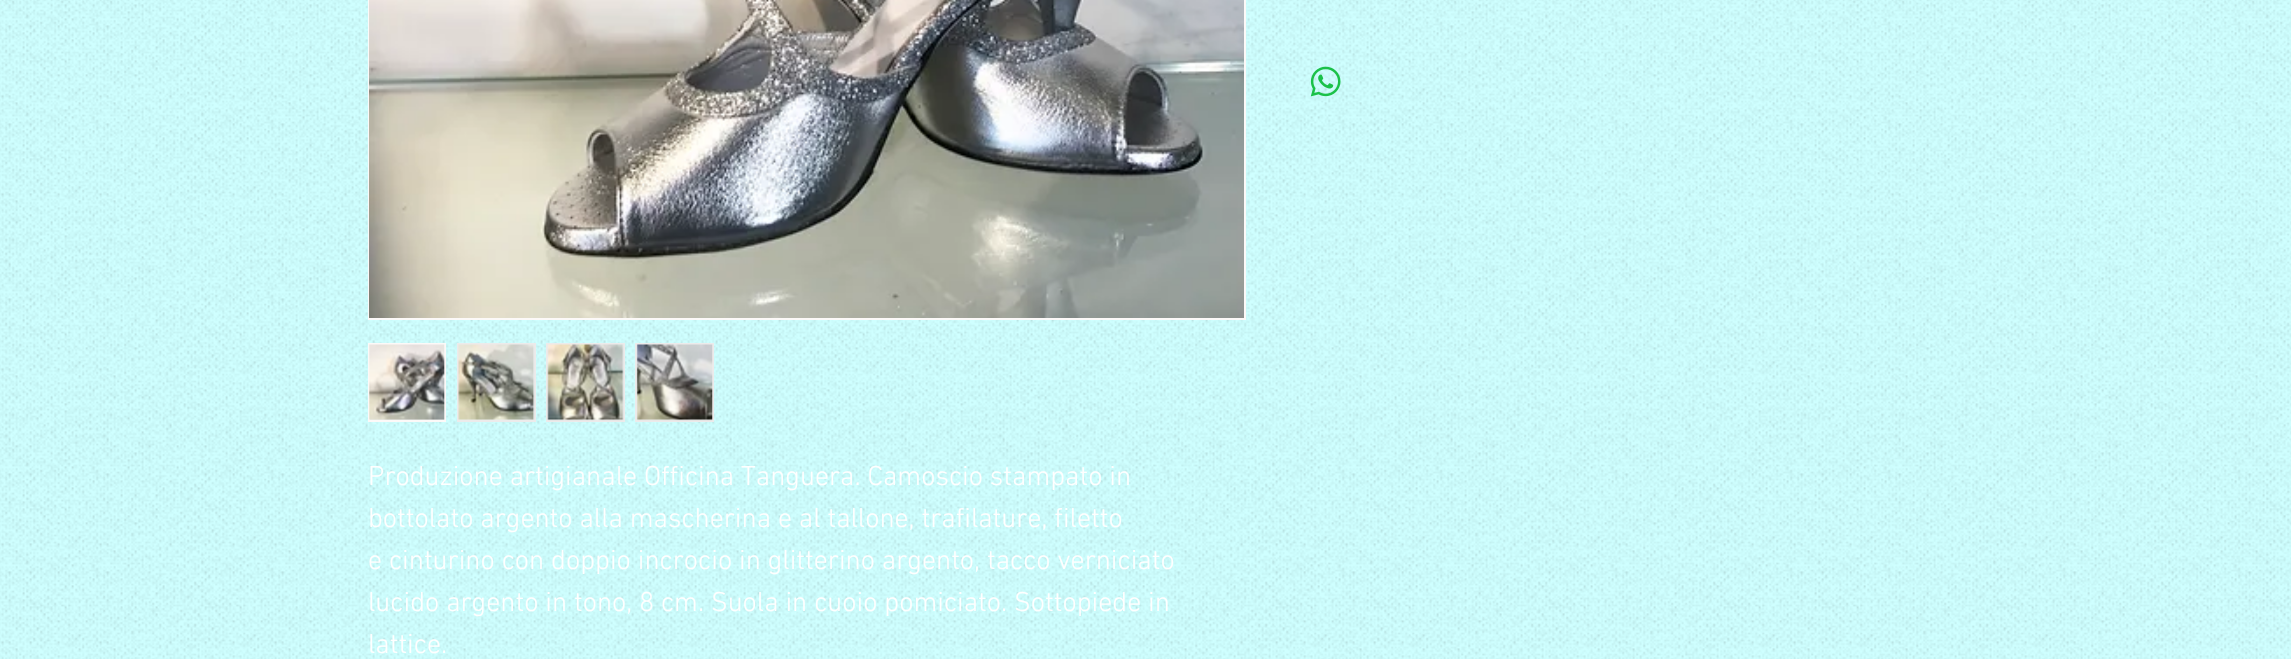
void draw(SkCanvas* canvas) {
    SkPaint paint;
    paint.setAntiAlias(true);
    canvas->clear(0xFFCFFFFF);
    canvas->drawImageRect(SkImages::DeferredFromEncodedData(SkData::MakeFromFileName("img1.png")), SkRect::MakeXYWH(0, 0, 2291, 659), SkSamplingOptions());
    canvas->drawImageRect(SkImages::DeferredFromEncodedData(SkData::MakeFromFileName("img2.png")), SkRect::MakeXYWH(1310, 66, 31, 31), SkSamplingOptions());
    paint.setStyle(SkPaint::kStroke_Style);
    paint.setStrokeWidth(2);
    paint.setColor(0xFFFCF9F8);
    canvas->drawRect(SkRect::MakeXYWH(369, -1, 876, 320), paint);
    canvas->drawImageRect(SkImages::DeferredFromEncodedData(SkData::MakeFromFileName("img3.png")), SkRect::MakeXYWH(369, 0, 875, 318), SkSamplingOptions());
    paint.setStyle(SkPaint::kFill_Style);
    paint.setColor(0xFFECEBEB);
    canvas->drawRect(SkRect::MakeXYWH(370, 419, 74, 1), paint);
    paint.setStyle(SkPaint::kStroke_Style);
    paint.setColor(0xFFFCF9F8);
    canvas->drawRect(SkRect::MakeXYWH(369, 344, 76, 77), paint);
    canvas->drawImageRect(SkImages::DeferredFromEncodedData(SkData::MakeFromFileName("img4.png")), SkRect::MakeXYWH(369, 344, 76, 76), SkSamplingOptions());
    paint.setStyle(SkPaint::kFill_Style);
    paint.setColor(0xFFECEBEB);
    canvas->drawRect(SkRect::MakeXYWH(457, 343, 79, 79), paint);
    canvas->drawImageRect(SkImages::DeferredFromEncodedData(SkData::MakeFromFileName("img5.png")), SkRect::MakeXYWH(458, 344, 77, 76), SkSamplingOptions());
    canvas->drawRect(SkRect::MakeXYWH(546, 343, 79, 79), paint);
    canvas->drawImageRect(SkImages::DeferredFromEncodedData(SkData::MakeFromFileName("img6.png")), SkRect::MakeXYWH(547, 344, 77, 77), SkSamplingOptions());
    canvas->drawRect(SkRect::MakeXYWH(635, 343, 79, 79), paint);
    canvas->drawImageRect(SkImages::DeferredFromEncodedData(SkData::MakeFromFileName("img7.png")), SkRect::MakeXYWH(636, 344, 77, 77), SkSamplingOptions());
    SkFont font1(fontMgr->matchFamilyStyle("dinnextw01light", SkFontStyle(300, SkFontStyle::kNormal_Width, SkFontStyle::kUpright_Slant)), 28);
    font1.setSubpixel(true);
    paint.setColor(0xFFFFFFFF);
    canvas->drawString("Produzione artigianale Officina Tanguera. Camoscio stampato in", 368, 485, font1, paint);
    canvas->drawString("bottolato argento alla mascherina e al tallone, trafilature, filetto", 368, 527, font1, paint);
    canvas->drawString("e cinturino con doppio incrocio in glitterino argento, tacco verniciato", 368, 569, font1, paint);
    canvas->drawString("lucido argento in tono, 8 cm. Suola in cuoio pomiciato. Sottopiede in", 368, 611, font1, paint);
    canvas->drawString("lattice.", 368, 653, font1, paint);
}
